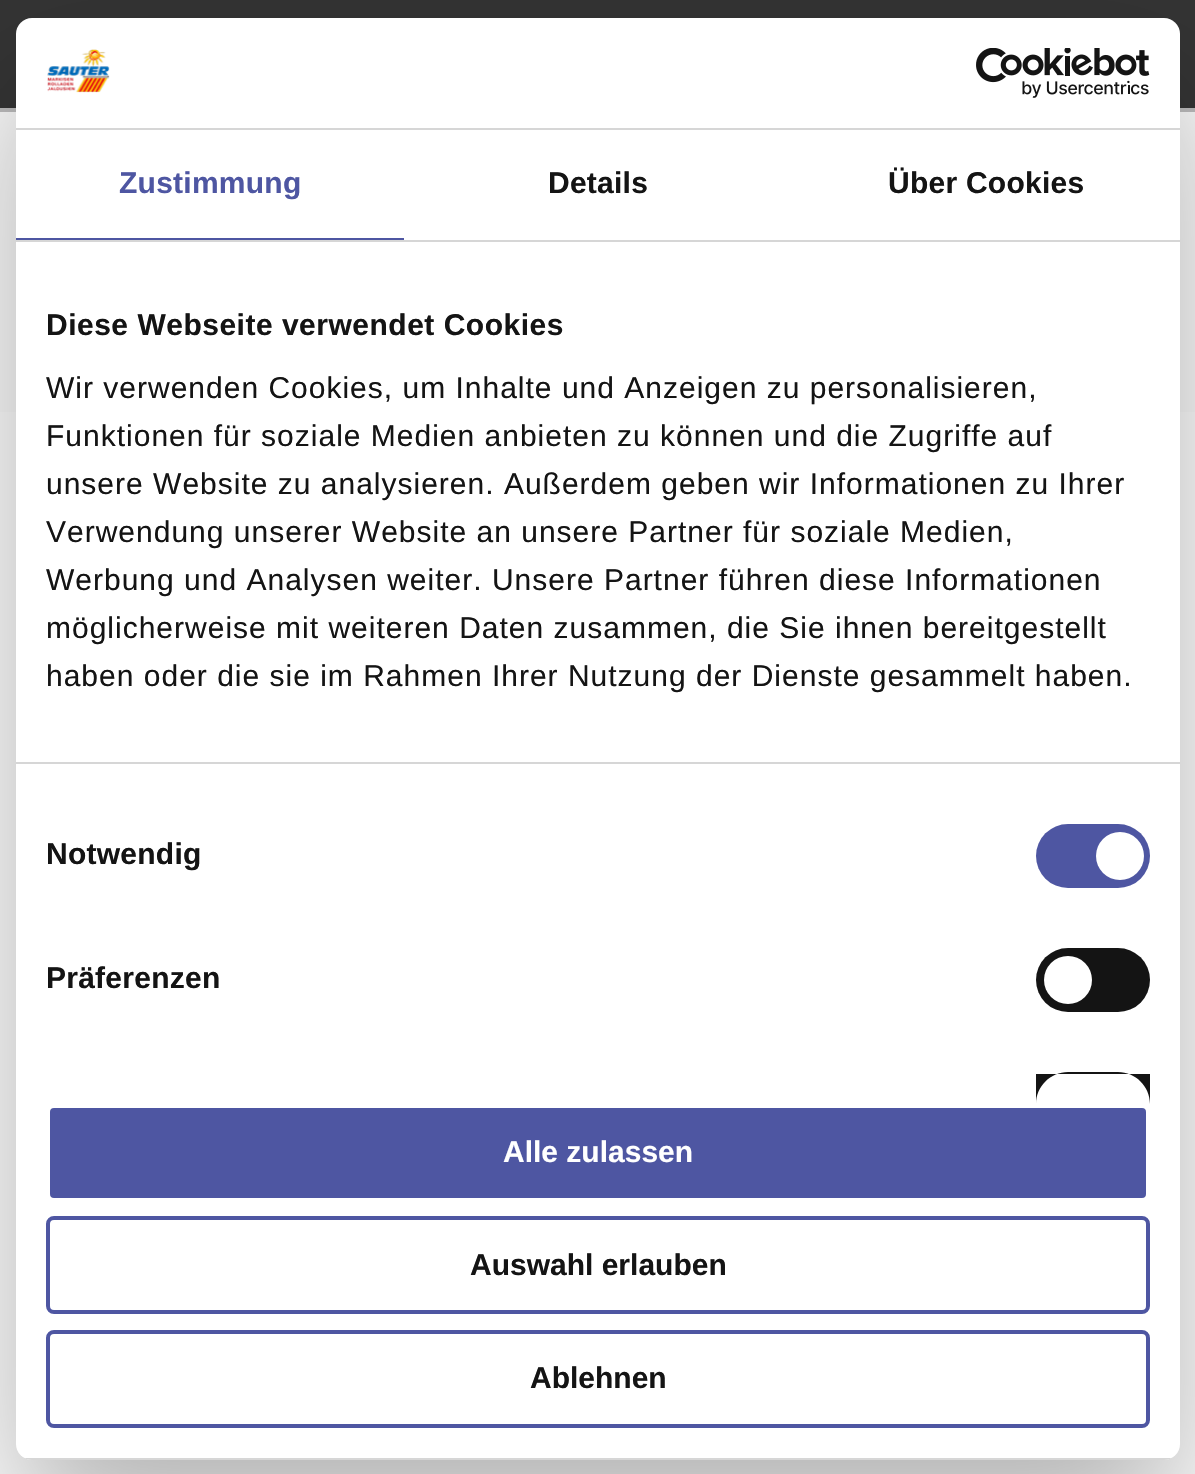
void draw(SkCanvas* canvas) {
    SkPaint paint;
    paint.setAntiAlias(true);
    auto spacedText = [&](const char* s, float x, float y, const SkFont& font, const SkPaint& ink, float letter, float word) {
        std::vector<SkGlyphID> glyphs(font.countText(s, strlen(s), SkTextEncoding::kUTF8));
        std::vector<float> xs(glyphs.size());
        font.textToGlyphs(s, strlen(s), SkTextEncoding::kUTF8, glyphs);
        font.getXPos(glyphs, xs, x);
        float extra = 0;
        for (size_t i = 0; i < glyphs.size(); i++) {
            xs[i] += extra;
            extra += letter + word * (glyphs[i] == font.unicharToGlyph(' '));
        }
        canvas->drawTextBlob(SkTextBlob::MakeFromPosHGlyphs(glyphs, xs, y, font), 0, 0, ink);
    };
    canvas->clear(0xFFFFFFFF);
    paint.setColor(0xFF343434);
    canvas->drawRect(SkRect::MakeXYWH(0, 0, 1195, 108), paint);
    paint.setColor(0xFFBDBCBD);
    canvas->drawRect(SkRect::MakeXYWH(0, 108, 1195, 4), paint);
    paint.setColor(0xFFFBFBFB);
    canvas->drawRect(SkRect::MakeXYWH(0, 112, 1195, 300), paint);
    paint.setColor(0x4D000000);
    paint.setMaskFilter(SkMaskFilter::MakeBlur(kNormal_SkBlurStyle, 68));
    canvas->drawRoundRect(SkRect::MakeXYWH(16, 82, 1164, 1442), 16, 16, paint);
    paint.setMaskFilter(nullptr);
    paint.setColor(0xFFFFFFFF);
    canvas->drawRoundRect(SkRect::MakeXYWH(16, 18, 1164, 1442), 16, 16, paint);
    paint.setColor(0xFFD6D6D6);
    canvas->drawRect(SkRect::MakeXYWH(16, 128, 1164, 2), paint);
    canvas->drawImageRect(SkImages::DeferredFromEncodedData(SkData::MakeFromFileName("img1.png")), SkRect::MakeXYWH(47, 49, 63, 44), SkSamplingOptions());
    canvas->drawImageRect(SkImages::DeferredFromEncodedData(SkData::MakeFromFileName("img2.png")), SkRect::MakeXYWH(976, 48, 174, 50), SkSamplingOptions());
    canvas->drawRect(SkRect::MakeXYWH(16, 240, 1164, 2), paint);
    paint.setColor(0xFF4E56A2);
    canvas->drawRect(SkRect::MakeXYWH(16, 238, 388, 2), paint);
    SkFont font1(fontMgr->matchFamilyStyle("Liberation Sans", SkFontStyle::Bold()), 30);
    font1.setSubpixel(true);
    spacedText("Zustimmung", 119, 193, font1, paint, 0.25f, 0);
    paint.setColor(0xFF141414);
    spacedText("Details", 548, 193, font1, paint, 0.25f, 0);
    spacedText("Über Cookies", 888, 193, font1, paint, 0.25f, 0);
    paint.setColor(0xFFD6D6D6);
    canvas->drawRect(SkRect::MakeXYWH(16, 762, 1164, 2), paint);
    paint.setColor(0xFF141414);
    spacedText("Diese Webseite verwendet Cookies", 46, 335, font1, paint, 0.5f, 0);
    SkFont font2(fontMgr->matchFamilyStyle("Liberation Sans", SkFontStyle::Normal()), 30);
    font2.setSubpixel(true);
    spacedText("Wir verwenden Cookies, um Inhalte und Anzeigen zu personalisieren,", 46, 398, font2, paint, 1, 0);
    spacedText("Funktionen für soziale Medien anbieten zu können und die Zugriffe auf", 46, 446, font2, paint, 1, 0);
    spacedText("unsere Website zu analysieren. Außerdem geben wir Informationen zu Ihrer", 46, 494, font2, paint, 1, 0);
    spacedText("Verwendung unserer Website an unsere Partner für soziale Medien,", 46, 542, font2, paint, 1, 0);
    spacedText("Werbung und Analysen weiter. Unsere Partner führen diese Informationen", 46, 590, font2, paint, 1, 0);
    spacedText("möglicherweise mit weiteren Daten zusammen, die Sie ihnen bereitgestellt", 46, 638, font2, paint, 1, 0);
    spacedText("haben oder die sie im Rahmen Ihrer Nutzung der Dienste gesammelt haben.", 46, 686, font2, paint, 1, 0);
    spacedText("Notwendig", 46, 864, font1, paint, 0.25f, 0);
    paint.setColor(0xFF4E56A2);
    canvas->drawRoundRect(SkRect::MakeXYWH(1036, 824, 114, 64), 32, 32, paint);
    paint.setColor(0xFFFFFFFF);
    canvas->drawCircle(1120, 856, 24, paint);
    paint.setColor(0xFF141414);
    spacedText("Präferenzen", 46, 988, font1, paint, 0.25f, 0);
    canvas->drawRoundRect(SkRect::MakeXYWH(1036, 948, 114, 64), 32, 32, paint);
    paint.setColor(0xFFFFFFFF);
    canvas->drawCircle(1068, 980, 24, paint);
    paint.setColor(0xFF141414);
    canvas->drawPath(SkPathBuilder().moveTo(1068, 1072).lineTo(1118, 1072).cubicTo(1135.5f, 1072, 1150, 1086.5f, 1150, 1104).lineTo(1150, 1074).lineTo(1036, 1074).lineTo(1036, 1104).cubicTo(1036, 1086.5f, 1050.5f, 1072, 1068, 1072).close().detach(), paint);
    canvas->save();
    canvas->clipPath(SkPathBuilder().moveTo(32, 18).lineTo(1164, 18).cubicTo(1173, 18, 1180, 25, 1180, 34).lineTo(1180, 1444).cubicTo(1180, 1453, 1173, 1460, 1164, 1460).lineTo(32, 1460).cubicTo(23, 1460, 16, 1453, 16, 1444).lineTo(16, 34).cubicTo(16, 25, 23, 18, 32, 18).close().detach(), true);
    paint.setColor(0xFFD6D6D6);
    canvas->drawRect(SkRect::MakeXYWH(16, 1458, 1164, 2), paint);
    canvas->restore();
    paint.setColor(0xFF4E56A2);
    canvas->drawRoundRect(SkRect::MakeXYWH(48, 1106, 1100, 94), 6, 6, paint);
    paint.setStyle(SkPaint::kStroke_Style);
    paint.setStrokeWidth(4);
    paint.setColor(0xFFFFFFFF);
    canvas->drawRoundRect(SkRect::MakeXYWH(48, 1106, 1100, 94), 6, 6, paint);
    paint.setStyle(SkPaint::kFill_Style);
    canvas->drawString("Alle zulassen", 503, 1162, font1, paint);
    paint.setStyle(SkPaint::kStroke_Style);
    paint.setColor(0xFF4E56A2);
    canvas->drawRoundRect(SkRect::MakeXYWH(48, 1218, 1100, 94), 6, 6, paint);
    paint.setStyle(SkPaint::kFill_Style);
    paint.setColor(0xFF141414);
    canvas->drawString("Auswahl erlauben", 470, 1275, font1, paint);
    paint.setStyle(SkPaint::kStroke_Style);
    paint.setColor(0xFF4E56A2);
    canvas->drawRoundRect(SkRect::MakeXYWH(48, 1332, 1100, 94), 6, 6, paint);
    paint.setStyle(SkPaint::kFill_Style);
    paint.setColor(0xFF141414);
    canvas->drawString("Ablehnen", 530, 1388, font1, paint);
}
